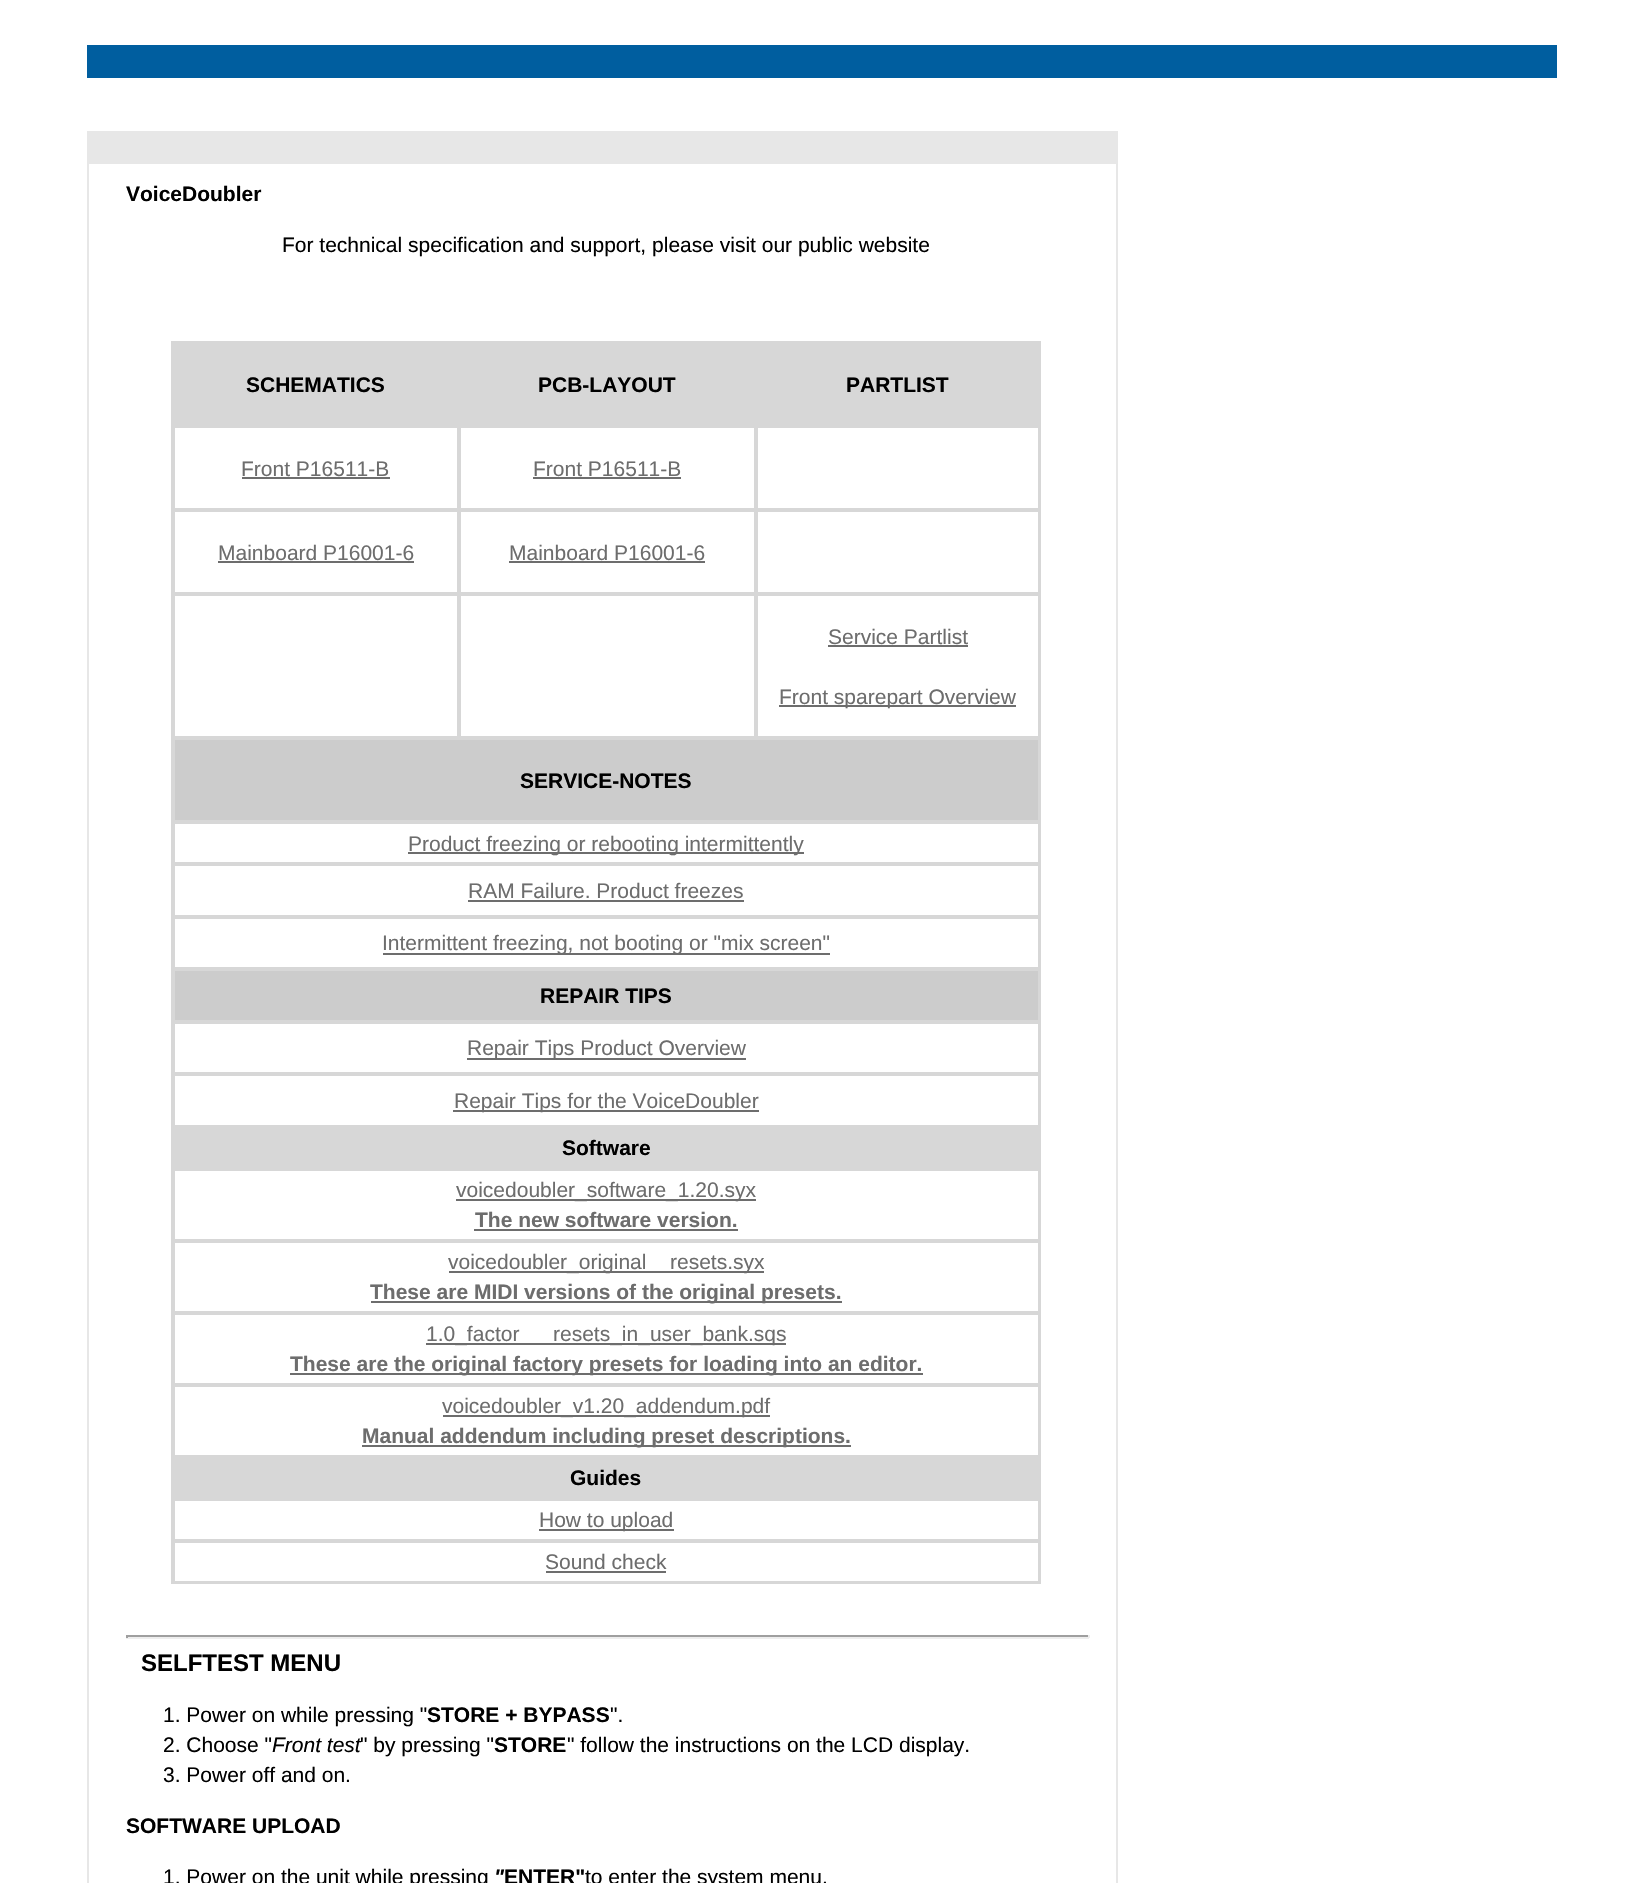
void draw(SkCanvas* canvas) {
    SkPaint paint;
    paint.setAntiAlias(true);
    canvas->clear(0xFFFFFFFF);
    paint.setColor(0xFF005E9F);
    canvas->drawRect(SkRect::MakeXYWH(87, 45, 1470, 33), paint);
    paint.setColor(0xFFE7E7E7);
    canvas->drawRect(SkRect::MakeXYWH(87, 131, 1031, 31), paint);
    paint.setStyle(SkPaint::kStroke_Style);
    paint.setStrokeWidth(2);
    canvas->drawRect(SkRect::MakeXYWH(88, 163, 1029, 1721), paint);
    SkFont font1(fontMgr->matchFamilyStyle("Liberation Sans", SkFontStyle::Bold()), 21);
    font1.setSubpixel(true);
    paint.setStyle(SkPaint::kFill_Style);
    paint.setColor(0xFF000000);
    canvas->drawString("VoiceDoubler", 126, 201, font1, paint);
    SkFont font2(fontMgr->matchFamilyStyle("Liberation Sans", SkFontStyle::Normal()), 21);
    font2.setSubpixel(true);
    canvas->drawString("For technical specification and support, please visit our public website", 282, 252, font2, paint);
    paint.setStyle(SkPaint::kStroke_Style);
    paint.setColor(0xFFD7D7D7);
    canvas->drawRect(SkRect::MakeXYWH(172, 342, 868, 1241), paint);
    paint.setStyle(SkPaint::kFill_Style);
    canvas->drawRect(SkRect::MakeXYWH(173, 343, 866, 83), paint);
    paint.setColor(0xFF000000);
    canvas->drawString("SCHEMATICS", 246, 392, font1, paint);
    canvas->drawString("PCB-LAYOUT", 538, 392, font1, paint);
    canvas->drawString("PARTLIST", 846, 392, font1, paint);
    paint.setStyle(SkPaint::kStroke_Style);
    paint.setColor(0xFFD7D7D7);
    canvas->drawRect(SkRect::MakeXYWH(174, 427, 284, 82), paint);
    paint.setStyle(SkPaint::kFill_Style);
    paint.setColor(0xFF6D6D6D);
    canvas->drawString("Front P16511-B", 241, 476, font2, paint);
    canvas->drawRect(SkRect::MakeXYWH(242, 477, 148, 2), paint);
    paint.setStyle(SkPaint::kStroke_Style);
    paint.setColor(0xFFD7D7D7);
    canvas->drawRect(SkRect::MakeXYWH(460, 427, 295, 82), paint);
    paint.setStyle(SkPaint::kFill_Style);
    paint.setColor(0xFF6D6D6D);
    canvas->drawString("Front P16511-B", 533, 476, font2, paint);
    canvas->drawRect(SkRect::MakeXYWH(533, 477, 148, 2), paint);
    paint.setStyle(SkPaint::kStroke_Style);
    paint.setColor(0xFFD7D7D7);
    canvas->drawRect(SkRect::MakeXYWH(757, 427, 282, 82), paint);
    canvas->drawRect(SkRect::MakeXYWH(174, 511, 284, 82), paint);
    paint.setStyle(SkPaint::kFill_Style);
    paint.setColor(0xFF6D6D6D);
    canvas->drawString("Mainboard P16001-6", 218, 560, font2, paint);
    canvas->drawRect(SkRect::MakeXYWH(218, 561, 196, 2), paint);
    paint.setStyle(SkPaint::kStroke_Style);
    paint.setColor(0xFFD7D7D7);
    canvas->drawRect(SkRect::MakeXYWH(460, 511, 295, 82), paint);
    paint.setStyle(SkPaint::kFill_Style);
    paint.setColor(0xFF6D6D6D);
    canvas->drawString("Mainboard P16001-6", 509, 560, font2, paint);
    canvas->drawRect(SkRect::MakeXYWH(509, 561, 196, 2), paint);
    paint.setStyle(SkPaint::kStroke_Style);
    paint.setColor(0xFFD7D7D7);
    canvas->drawRect(SkRect::MakeXYWH(757, 511, 282, 82), paint);
    canvas->drawRect(SkRect::MakeXYWH(174, 595, 284, 142), paint);
    canvas->drawRect(SkRect::MakeXYWH(460, 595, 295, 142), paint);
    canvas->drawRect(SkRect::MakeXYWH(757, 595, 282, 142), paint);
    paint.setStyle(SkPaint::kFill_Style);
    paint.setColor(0xFF6D6D6D);
    canvas->drawString("Service Partlist", 828, 644, font2, paint);
    canvas->drawRect(SkRect::MakeXYWH(828, 645, 140, 2), paint);
    canvas->drawRect(SkRect::MakeXYWH(779, 705, 237, 2), paint);
    canvas->drawString("Front sparepart Overview", 779, 704, font2, paint);
    paint.setColor(0xFFCCCCCC);
    canvas->drawRect(SkRect::MakeXYWH(174, 739, 865, 82), paint);
    paint.setStyle(SkPaint::kStroke_Style);
    paint.setColor(0xFFD7D7D7);
    canvas->drawRect(SkRect::MakeXYWH(174, 739, 865, 82), paint);
    paint.setStyle(SkPaint::kFill_Style);
    paint.setColor(0xFF000000);
    canvas->drawString("SERVICE-NOTES", 520, 788, font1, paint);
    paint.setStyle(SkPaint::kStroke_Style);
    paint.setColor(0xFFD7D7D7);
    canvas->drawRect(SkRect::MakeXYWH(174, 823, 865, 40), paint);
    paint.setStyle(SkPaint::kFill_Style);
    paint.setColor(0xFF6D6D6D);
    canvas->drawRect(SkRect::MakeXYWH(408, 852, 396, 2), paint);
    canvas->drawString("Product freezing or rebooting intermittently", 408, 851, font2, paint);
    paint.setStyle(SkPaint::kStroke_Style);
    paint.setColor(0xFFD7D7D7);
    canvas->drawRect(SkRect::MakeXYWH(174, 865, 865, 51), paint);
    paint.setStyle(SkPaint::kFill_Style);
    paint.setColor(0xFF6D6D6D);
    canvas->drawString("RAM Failure. Product freezes", 468, 898, font2, paint);
    canvas->drawRect(SkRect::MakeXYWH(468, 900, 276, 2), paint);
    paint.setStyle(SkPaint::kStroke_Style);
    paint.setColor(0xFFD7D7D7);
    canvas->drawRect(SkRect::MakeXYWH(174, 918, 865, 50), paint);
    paint.setStyle(SkPaint::kFill_Style);
    paint.setColor(0xFF6D6D6D);
    canvas->drawRect(SkRect::MakeXYWH(383, 953, 447, 2), paint);
    canvas->drawString("Intermittent freezing, not booting or \"mix screen\"", 382, 950, font2, paint);
    paint.setColor(0xFFCCCCCC);
    canvas->drawRect(SkRect::MakeXYWH(174, 970, 865, 51), paint);
    paint.setStyle(SkPaint::kStroke_Style);
    paint.setColor(0xFFD7D7D7);
    canvas->drawRect(SkRect::MakeXYWH(174, 970, 865, 51), paint);
    paint.setStyle(SkPaint::kFill_Style);
    paint.setColor(0xFF000000);
    canvas->drawString("REPAIR TIPS", 540, 1003, font1, paint);
    paint.setStyle(SkPaint::kStroke_Style);
    paint.setColor(0xFFD7D7D7);
    canvas->drawRect(SkRect::MakeXYWH(174, 1023, 865, 50), paint);
    paint.setStyle(SkPaint::kFill_Style);
    paint.setColor(0xFF6D6D6D);
    canvas->drawRect(SkRect::MakeXYWH(467, 1058, 279, 2), paint);
    canvas->drawString("Repair Tips Product Overview", 467, 1055, font2, paint);
    paint.setStyle(SkPaint::kStroke_Style);
    paint.setColor(0xFFD7D7D7);
    canvas->drawRect(SkRect::MakeXYWH(174, 1075, 865, 51), paint);
    paint.setStyle(SkPaint::kFill_Style);
    paint.setColor(0xFF6D6D6D);
    canvas->drawRect(SkRect::MakeXYWH(453, 1110, 306, 2), paint);
    canvas->drawString("Repair Tips for the VoiceDoubler", 454, 1108, font2, paint);
    paint.setColor(0xFFD7D7D7);
    canvas->drawRect(SkRect::MakeXYWH(173, 1127, 866, 42), paint);
    paint.setColor(0xFF000000);
    canvas->drawString("Software", 562, 1155, font1, paint);
    paint.setStyle(SkPaint::kStroke_Style);
    paint.setColor(0xFFD7D7D7);
    canvas->drawRect(SkRect::MakeXYWH(174, 1170, 865, 70), paint);
    paint.setStyle(SkPaint::kFill_Style);
    paint.setColor(0xFF6D6D6D);
    canvas->drawRect(SkRect::MakeXYWH(456, 1199, 300, 2), paint);
    canvas->drawString("voicedoubler_software_1.20.syx", 456, 1197, font2, paint);
    canvas->drawString("The new software version.", 475, 1227, font1, paint);
    canvas->drawRect(SkRect::MakeXYWH(474, 1229, 264, 2), paint);
    paint.setStyle(SkPaint::kStroke_Style);
    paint.setColor(0xFFD7D7D7);
    canvas->drawRect(SkRect::MakeXYWH(174, 1242, 865, 70), paint);
    paint.setStyle(SkPaint::kFill_Style);
    paint.setColor(0xFF6D6D6D);
    canvas->drawRect(SkRect::MakeXYWH(449, 1271, 315, 2), paint);
    canvas->drawString("voicedoubler_original", 448, 1269, font2, paint);
    canvas->drawString("resets.syx", 670, 1269, font2, paint);
    canvas->drawRect(SkRect::MakeXYWH(371, 1301, 471, 2), paint);
    canvas->drawString("These are MIDI versions of the original presets.", 370, 1299, font1, paint);
    paint.setStyle(SkPaint::kStroke_Style);
    paint.setColor(0xFFD7D7D7);
    canvas->drawRect(SkRect::MakeXYWH(174, 1314, 865, 70), paint);
    paint.setStyle(SkPaint::kFill_Style);
    paint.setColor(0xFF6D6D6D);
    canvas->drawRect(SkRect::MakeXYWH(426, 1343, 360, 2), paint);
    canvas->drawString("1.0_factor", 426, 1341, font2, paint);
    canvas->drawString("resets_in_user_bank.sqs", 553, 1341, font2, paint);
    canvas->drawRect(SkRect::MakeXYWH(290, 1373, 633, 2), paint);
    canvas->drawString("These are the original factory presets for loading into an editor.", 290, 1371, font1, paint);
    paint.setStyle(SkPaint::kStroke_Style);
    paint.setColor(0xFFD7D7D7);
    canvas->drawRect(SkRect::MakeXYWH(174, 1386, 865, 70), paint);
    paint.setStyle(SkPaint::kFill_Style);
    paint.setColor(0xFF6D6D6D);
    canvas->drawRect(SkRect::MakeXYWH(443, 1415, 327, 2), paint);
    canvas->drawString("voicedoubler_v1.20_addendum.pdf", 442, 1413, font2, paint);
    canvas->drawRect(SkRect::MakeXYWH(362, 1445, 489, 2), paint);
    canvas->drawString("Manual addendum including preset descriptions.", 362, 1443, font1, paint);
    paint.setColor(0xFFD7D7D7);
    canvas->drawRect(SkRect::MakeXYWH(173, 1457, 866, 42), paint);
    paint.setColor(0xFF000000);
    canvas->drawString("Guides", 570, 1485, font1, paint);
    paint.setStyle(SkPaint::kStroke_Style);
    paint.setColor(0xFFD7D7D7);
    canvas->drawRect(SkRect::MakeXYWH(174, 1500, 865, 40), paint);
    paint.setStyle(SkPaint::kFill_Style);
    paint.setColor(0xFF6D6D6D);
    canvas->drawRect(SkRect::MakeXYWH(539, 1529, 135, 2), paint);
    canvas->drawString("How to upload", 539, 1527, font2, paint);
    paint.setStyle(SkPaint::kStroke_Style);
    paint.setColor(0xFFD7D7D7);
    canvas->drawRect(SkRect::MakeXYWH(174, 1542, 865, 40), paint);
    paint.setStyle(SkPaint::kFill_Style);
    paint.setColor(0xFF6D6D6D);
    canvas->drawString("Sound check", 545, 1569, font2, paint);
    canvas->drawRect(SkRect::MakeXYWH(546, 1571, 120, 2), paint);
    paint.setColor(0xFF9F9F9F);
    canvas->drawRect(SkRect::MakeXYWH(126, 1635, 963, 2), paint);
    paint.setColor(0xFFEEEEEE);
    canvas->drawRect(SkRect::MakeXYWH(1088, 1635, 2, 3), paint);
    canvas->drawRect(SkRect::MakeXYWH(126, 1637, 963, 2), paint);
    paint.setColor(0xFF9F9F9F);
    canvas->drawRect(SkRect::MakeXYWH(126, 1635, 2, 3), paint);
    SkFont font3(fontMgr->matchFamilyStyle("Liberation Sans", SkFontStyle::Bold()), 24);
    font3.setSubpixel(true);
    paint.setColor(0xFF000000);
    canvas->drawString("SELFTEST MENU", 141, 1671, font3, paint);
    canvas->drawString("1. Power on while pressing \"", 163, 1722, font2, paint);
    canvas->drawString("STORE + BYPASS", 427, 1722, font1, paint);
    canvas->drawString("\".", 610, 1722, font2, paint);
    canvas->drawString("2. Choose \"", 163, 1752, font2, paint);
    SkFont font4(fontMgr->matchFamilyStyle("Liberation Sans", SkFontStyle::Italic()), 21);
    font4.setSubpixel(true);
    canvas->drawString("Front test", 272, 1752, font4, paint);
    canvas->drawString("\" by pressing \"", 360, 1752, font2, paint);
    canvas->drawString("STORE", 494, 1752, font1, paint);
    canvas->drawString("\" follow the instructions on the LCD display.", 567, 1752, font2, paint);
    canvas->drawString("3. Power off and on.", 163, 1782, font2, paint);
    canvas->drawString("SOFTWARE UPLOAD", 126, 1833, font1, paint);
    canvas->drawString("1. Power on the unit while pressing", 163, 1884, font2, paint);
    SkFont font5(fontMgr->matchFamilyStyle("Liberation Sans", SkFontStyle::BoldItalic()), 21);
    font5.setSubpixel(true);
    canvas->drawString("\"", 494, 1884, font5, paint);
    canvas->drawString("ENTER\"", 504, 1884, font1, paint);
    canvas->drawString("to enter the system menu.", 585, 1884, font2, paint);
}
